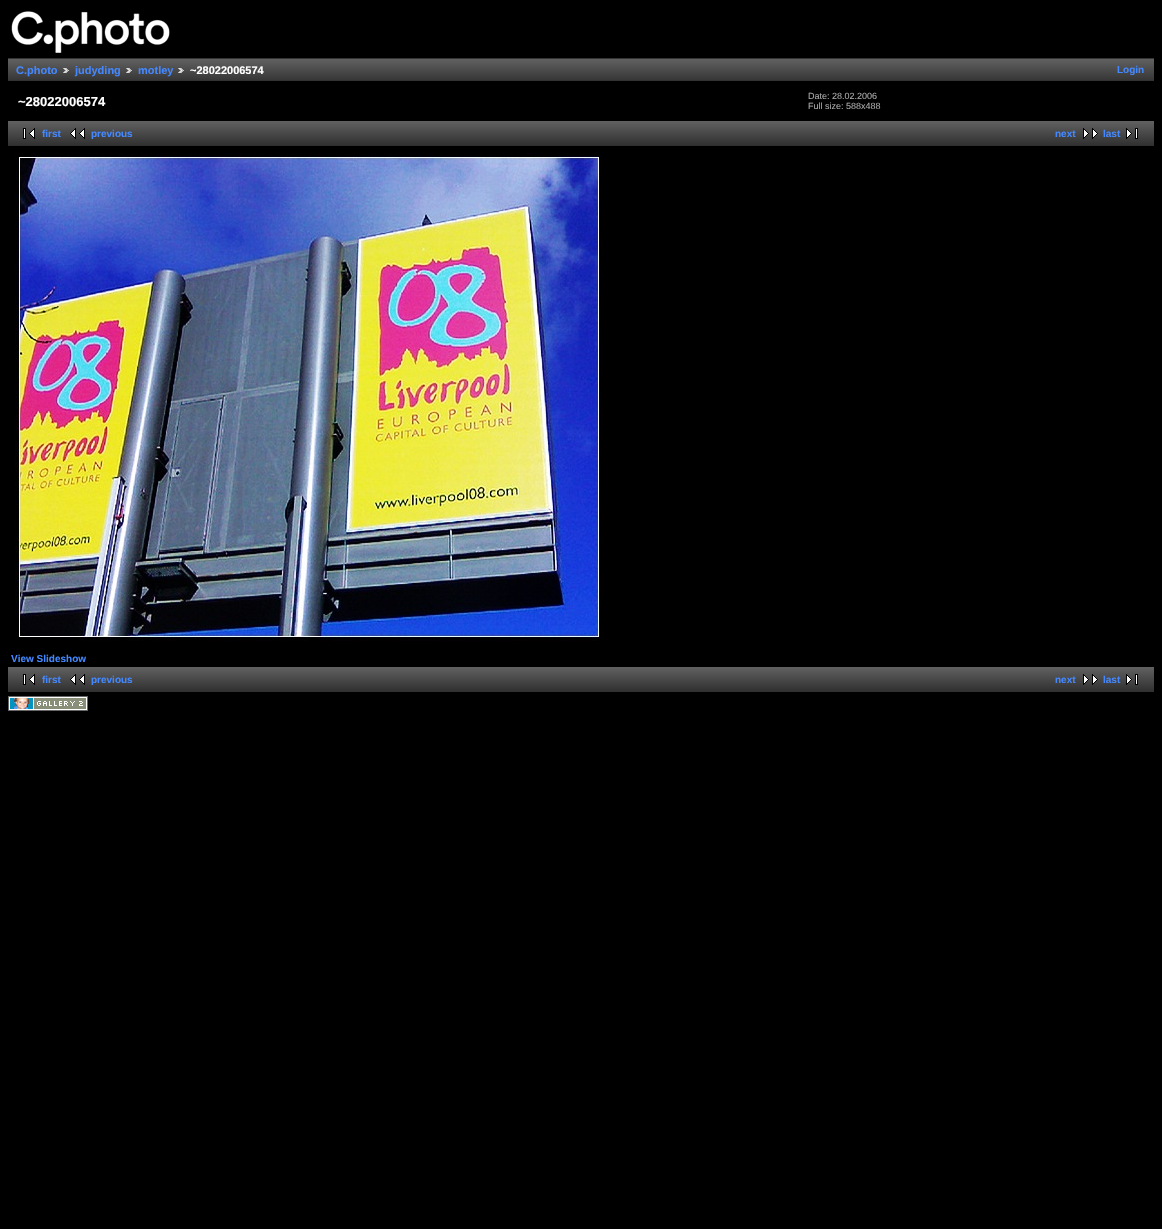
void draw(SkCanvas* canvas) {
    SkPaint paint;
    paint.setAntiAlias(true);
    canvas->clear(0xFF000000);
    canvas->drawImageRect(SkImages::DeferredFromEncodedData(SkData::MakeFromFileName("img1.png")), SkRect::MakeXYWH(11, 11, 159, 42), SkSamplingOptions());
    canvas->drawImageRect(SkImages::DeferredFromEncodedData(SkData::MakeFromFileName("img2.png")), SkRect::MakeXYWH(8, 59, 1146, 21), SkSamplingOptions());
    paint.setColor(0xFF333333);
    canvas->drawRect(SkRect::MakeXYWH(8, 58, 1146, 1), paint);
    canvas->drawRect(SkRect::MakeXYWH(8, 80, 1146, 1), paint);
    SkFont font1(fontMgr->matchFamilyStyle("Liberation Sans", SkFontStyle::Bold()), 11);
    font1.setSubpixel(true);
    paint.setColor(0xFF4488FF);
    canvas->drawString("C.photo", 16, 74, font1, paint);
    canvas->drawImageRect(SkImages::DeferredFromEncodedData(SkData::MakeFromFileName("img3.png")), SkRect::MakeXYWH(63, 68, 6, 5), SkSamplingOptions());
    canvas->drawString("judyding", 75, 74, font1, paint);
    canvas->drawImageRect(SkImages::DeferredFromEncodedData(SkData::MakeFromFileName("img3.png")), SkRect::MakeXYWH(126, 68, 6, 5), SkSamplingOptions());
    canvas->drawString("motley", 138, 74, font1, paint);
    canvas->drawImageRect(SkImages::DeferredFromEncodedData(SkData::MakeFromFileName("img3.png")), SkRect::MakeXYWH(178, 68, 6, 5), SkSamplingOptions());
    paint.setColor(0xFFFFFFFF);
    canvas->drawString("~28022006574", 190, 74, font1, paint);
    SkFont font2(fontMgr->matchFamilyStyle("Liberation Sans", SkFontStyle::Bold()), 10);
    font2.setSubpixel(true);
    paint.setColor(0xFF4488FF);
    canvas->drawString("Login", 1117, 73, font2, paint);
    SkFont font3(fontMgr->matchFamilyStyle("Liberation Sans", SkFontStyle::Bold()), 13);
    font3.setSubpixel(true);
    paint.setColor(0xFFFFFFFF);
    canvas->drawString("~28022006574", 18, 106, font3, paint);
    SkFont font4(fontMgr->matchFamilyStyle("Liberation Sans", SkFontStyle::Normal()), 9);
    font4.setSubpixel(true);
    paint.setColor(0xFFAAAAAA);
    canvas->drawString("Date: 28.02.2006", 808, 99, font4, paint);
    canvas->drawString("Full size: 588x488", 808, 109, font4, paint);
    canvas->drawImageRect(SkImages::DeferredFromEncodedData(SkData::MakeFromFileName("img4.png")), SkRect::MakeXYWH(8, 121, 1146, 25), SkSamplingOptions());
    canvas->drawImageRect(SkImages::DeferredFromEncodedData(SkData::MakeFromFileName("img5.png")), SkRect::MakeXYWH(23, 128, 12, 11), SkSamplingOptions());
    paint.setColor(0xFF4488FF);
    canvas->drawString("first", 42, 137, font2, paint);
    canvas->drawImageRect(SkImages::DeferredFromEncodedData(SkData::MakeFromFileName("img6.png")), SkRect::MakeXYWH(70, 128, 15, 11), SkSamplingOptions());
    canvas->drawString("previous", 91, 137, font2, paint);
    canvas->drawString("next", 1055, 137, font2, paint);
    canvas->drawImageRect(SkImages::DeferredFromEncodedData(SkData::MakeFromFileName("img7.png")), SkRect::MakeXYWH(1083, 128, 15, 11), SkSamplingOptions());
    canvas->drawString("last", 1103, 137, font2, paint);
    canvas->drawImageRect(SkImages::DeferredFromEncodedData(SkData::MakeFromFileName("img8.png")), SkRect::MakeXYWH(1126, 128, 12, 11), SkSamplingOptions());
    canvas->drawImageRect(SkImages::DeferredFromEncodedData(SkData::MakeFromFileName("img9.png")), SkRect::MakeXYWH(15, 153, 588, 488), SkSamplingOptions());
    canvas->drawString("View Slideshow", 11, 662, font2, paint);
    canvas->drawImageRect(SkImages::DeferredFromEncodedData(SkData::MakeFromFileName("img4.png")), SkRect::MakeXYWH(8, 667, 1146, 25), SkSamplingOptions());
    canvas->drawImageRect(SkImages::DeferredFromEncodedData(SkData::MakeFromFileName("img5.png")), SkRect::MakeXYWH(23, 674, 12, 11), SkSamplingOptions());
    canvas->drawString("first", 42, 683, font2, paint);
    canvas->drawImageRect(SkImages::DeferredFromEncodedData(SkData::MakeFromFileName("img6.png")), SkRect::MakeXYWH(70, 674, 15, 11), SkSamplingOptions());
    canvas->drawString("previous", 91, 683, font2, paint);
    canvas->drawString("next", 1055, 683, font2, paint);
    canvas->drawImageRect(SkImages::DeferredFromEncodedData(SkData::MakeFromFileName("img7.png")), SkRect::MakeXYWH(1083, 674, 15, 11), SkSamplingOptions());
    canvas->drawString("last", 1103, 683, font2, paint);
    canvas->drawImageRect(SkImages::DeferredFromEncodedData(SkData::MakeFromFileName("img8.png")), SkRect::MakeXYWH(1126, 674, 12, 11), SkSamplingOptions());
    canvas->drawImageRect(SkImages::DeferredFromEncodedData(SkData::MakeFromFileName("img10.png")), SkRect::MakeXYWH(8, 696, 80, 15), SkSamplingOptions());
}
